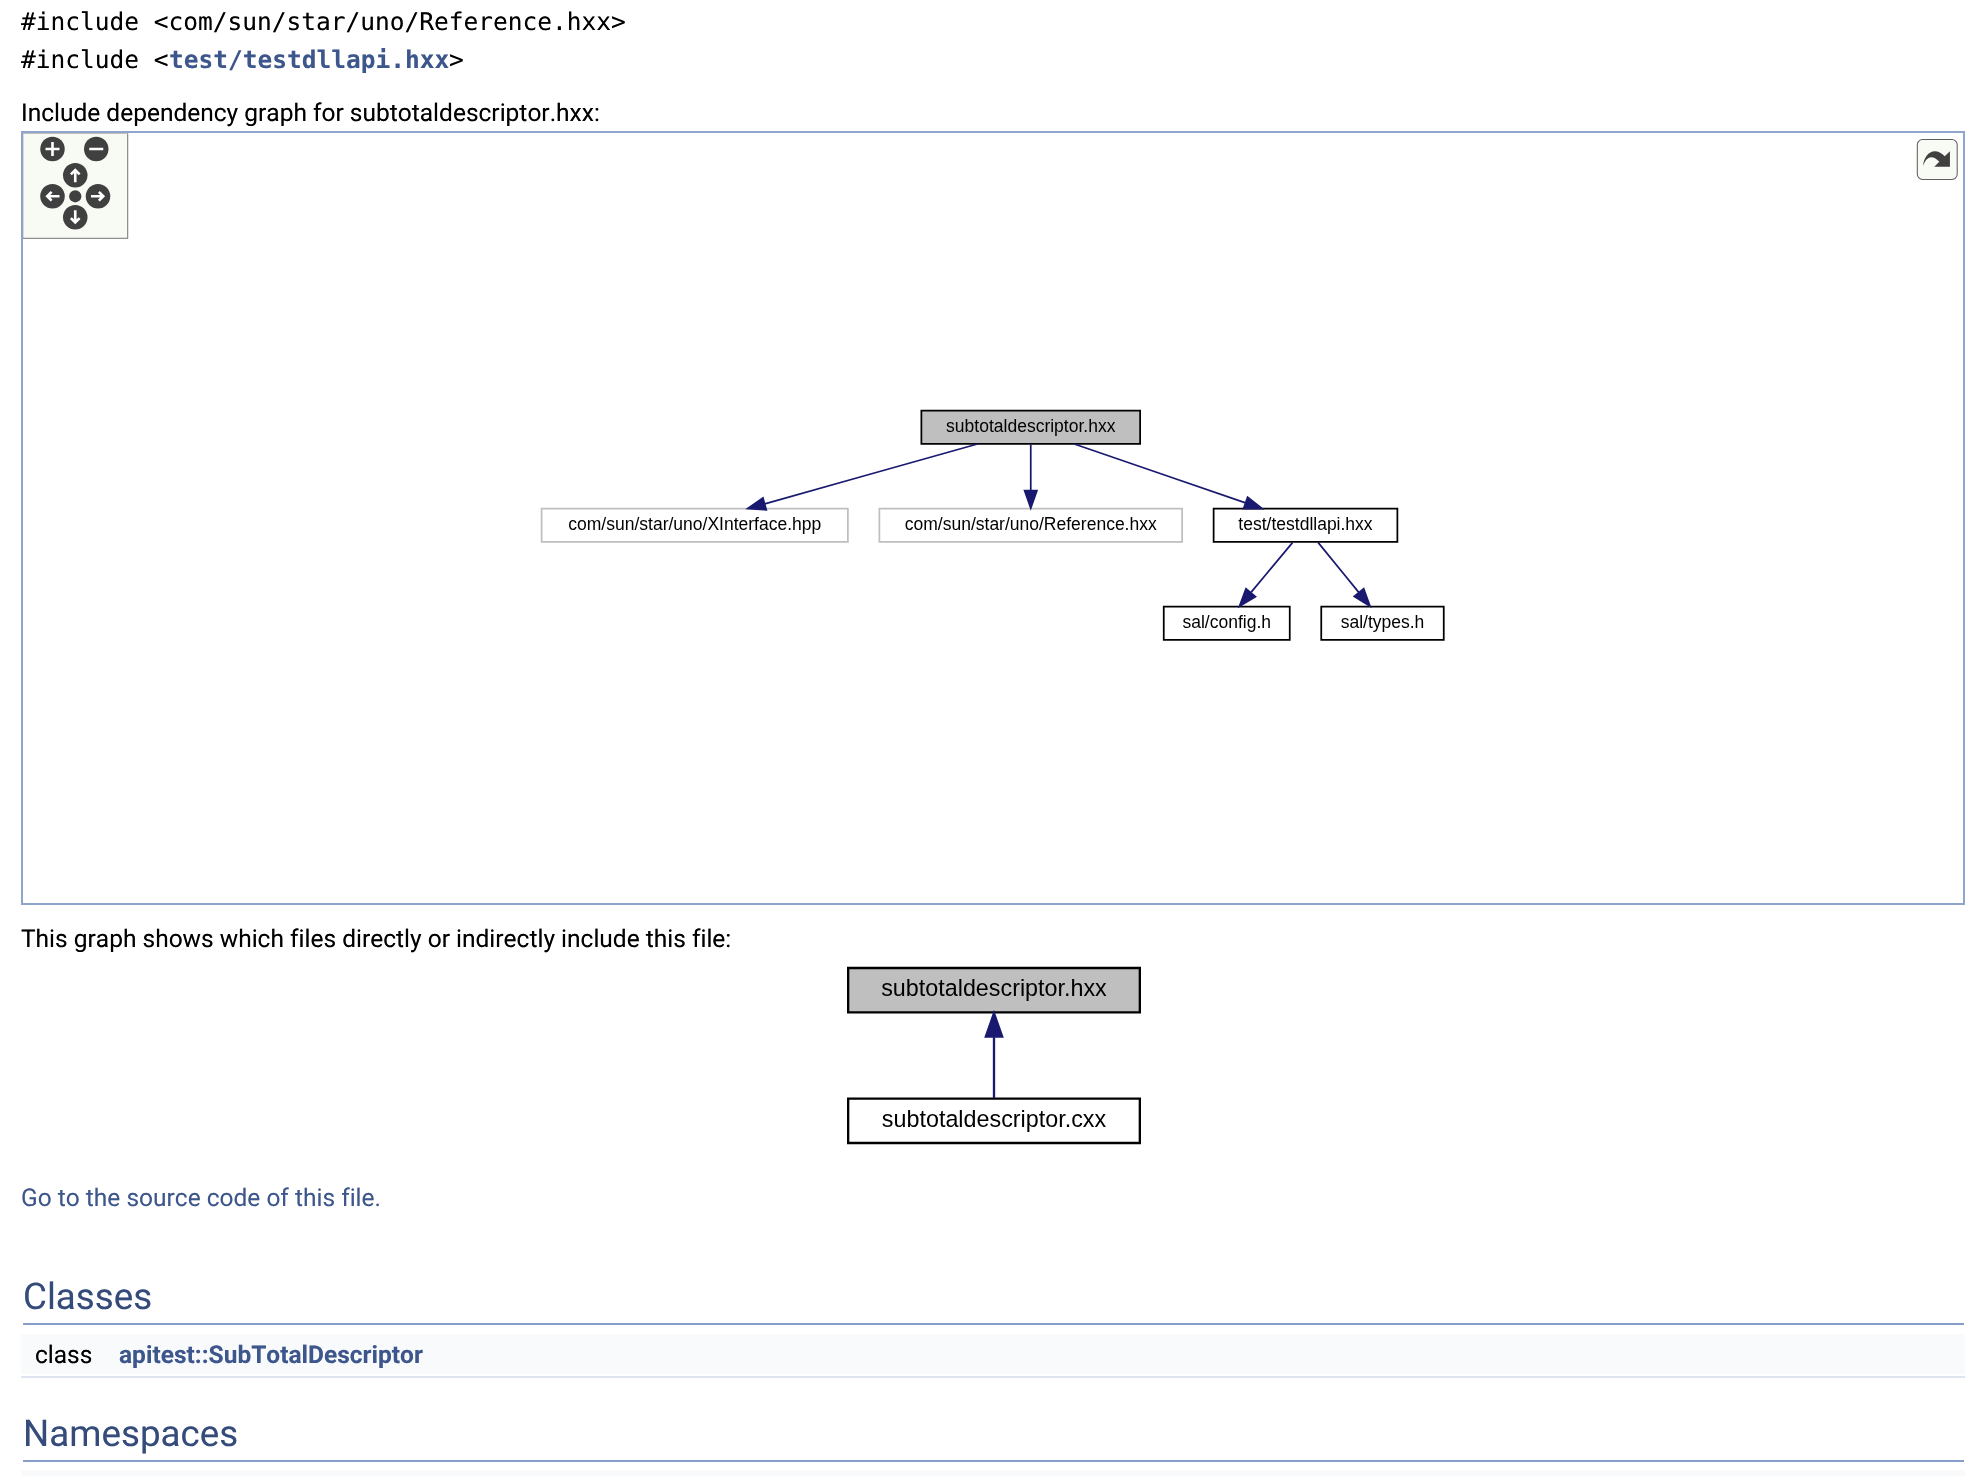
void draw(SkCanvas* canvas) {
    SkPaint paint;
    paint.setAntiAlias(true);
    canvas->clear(0xFFFFFFFF);
    SkFont font1(fontMgr->matchFamilyStyle("DejaVu Sans Mono", SkFontStyle::Normal()), 24.5f);
    font1.setSubpixel(true);
    paint.setColor(0xFF000000);
    canvas->drawString("#include <com/sun/star/uno/Reference.hxx>", 21, 30, font1, paint);
    canvas->drawString("#include <", 21, 68, font1, paint);
    SkFont font2(fontMgr->matchFamilyStyle("DejaVu Sans Mono", SkFontStyle::Bold()), 24.5f);
    font2.setSubpixel(true);
    paint.setColor(0xFF3D578C);
    canvas->drawString("test/testdllapi.hxx", 169, 68, font2, paint);
    paint.setColor(0xFF000000);
    canvas->drawString(">", 449, 68, font1, paint);
    SkFont font3(fontMgr->matchFamilyStyle("Roboto", SkFontStyle::Normal()), 24.5f);
    font3.setSubpixel(true);
    canvas->drawString("Include dependency graph for subtotaldescriptor.hxx:", 21, 121, font3, paint);
    paint.setStyle(SkPaint::kStroke_Style);
    paint.setStrokeWidth(2);
    paint.setColor(0xFF90A5CE);
    canvas->drawRect(SkRect::MakeXYWH(22, 132, 1942, 772), paint);
    canvas->drawImageRect(SkImages::DeferredFromEncodedData(SkData::MakeFromFileName("img1.png")), SkRect::MakeXYWH(22, 133, 1936, 508), SkSamplingOptions());
    paint.setStyle(SkPaint::kFill_Style);
    paint.setColor(0xFF000000);
    canvas->drawString("This graph shows which files directly or indirectly include this file:", 21, 947, font3, paint);
    canvas->drawImageRect(SkImages::DeferredFromEncodedData(SkData::MakeFromFileName("img2.png")), SkRect::MakeXYWH(847, 966, 294, 179), SkSamplingOptions());
    paint.setColor(0xFF3D578C);
    canvas->drawString("Go to the source code of this file.", 21, 1206, font3, paint);
    paint.setColor(0xFF879ECB);
    canvas->drawRect(SkRect::MakeXYWH(23, 1323, 1941, 2), paint);
    SkFont font4(fontMgr->matchFamilyStyle("Roboto", SkFontStyle::Normal()), 36.75f);
    font4.setSubpixel(true);
    paint.setColor(0xFF354C7B);
    canvas->drawString("Classes", 23, 1309, font4, paint);
    paint.setColor(0xFFF9FAFC);
    canvas->drawRect(SkRect::MakeXYWH(21, 1334, 1944, 40), paint);
    paint.setColor(0xFF000000);
    canvas->drawString("class", 35, 1363, font3, paint);
    SkFont font5(fontMgr->matchFamilyStyle("Roboto", SkFontStyle::Bold()), 24.5f);
    font5.setSubpixel(true);
    paint.setColor(0xFF3D578C);
    canvas->drawString("apitest::SubTotalDescriptor", 119, 1363, font5, paint);
    paint.setColor(0xFFDEE4F0);
    canvas->drawRect(SkRect::MakeXYWH(21, 1376, 1944, 2), paint);
    paint.setColor(0xFF879ECB);
    canvas->drawRect(SkRect::MakeXYWH(23, 1460, 1941, 2), paint);
    paint.setColor(0xFF354C7B);
    canvas->drawString("Namespaces", 23, 1446, font4, paint);
    paint.setColor(0xFFF9FAFC);
    canvas->drawRect(SkRect::MakeXYWH(21, 1470, 1944, 6), paint);
}
